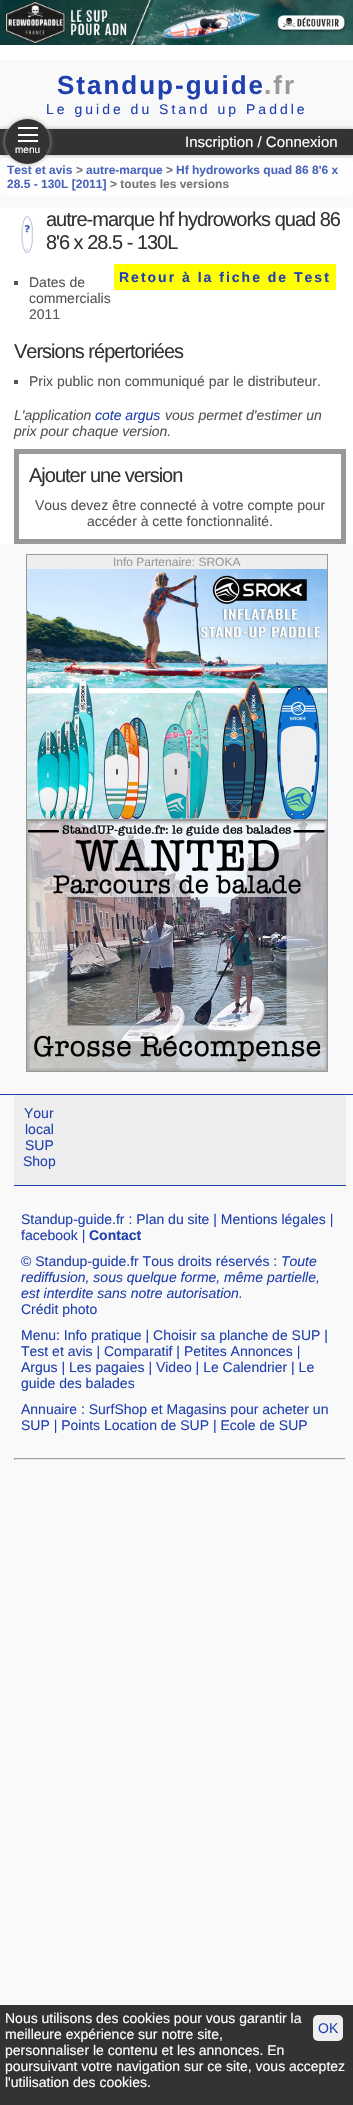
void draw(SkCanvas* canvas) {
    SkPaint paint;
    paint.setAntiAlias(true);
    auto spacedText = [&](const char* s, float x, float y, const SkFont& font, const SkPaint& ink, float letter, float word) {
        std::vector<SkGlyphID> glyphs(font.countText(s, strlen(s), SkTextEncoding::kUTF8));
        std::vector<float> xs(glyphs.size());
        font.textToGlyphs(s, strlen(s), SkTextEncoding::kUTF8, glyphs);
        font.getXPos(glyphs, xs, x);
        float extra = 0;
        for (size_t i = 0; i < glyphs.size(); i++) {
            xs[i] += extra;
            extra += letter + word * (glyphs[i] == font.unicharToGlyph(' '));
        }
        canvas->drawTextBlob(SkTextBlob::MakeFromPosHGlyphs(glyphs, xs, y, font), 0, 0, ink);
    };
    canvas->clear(0xFFF9F9F9);
    paint.setColor(0xFFFFFFFF);
    canvas->drawRect(SkRect::MakeXYWH(0, 45, 353, 15), paint);
    canvas->drawImageRect(SkImages::DeferredFromEncodedData(SkData::MakeFromFileName("img1.png")), SkRect::MakeXYWH(0, 0, 353, 45), SkSamplingOptions());
    SkFont font1(fontMgr->matchFamilyStyle("Liberation Sans", SkFontStyle::Bold()), 26);
    font1.setSubpixel(true);
    paint.setColor(0xFF2040B0);
    spacedText("Standup-guide", 57, 94, font1, paint, 2, 0);
    paint.setColor(0xFF999999);
    spacedText(".fr", 264, 94, font1, paint, 2, 0);
    SkFont font2(fontMgr->matchFamilyStyle("Liberation Sans", SkFontStyle::Normal()), 14);
    font2.setSubpixel(true);
    paint.setColor(0xFF2040B0);
    spacedText("Le guide du Stand up Paddle", 46, 114, font2, paint, 3, 0);
    paint.setColor(0xFFFEFEFE);
    canvas->drawRoundRect(SkRect::MakeXYWH(0, 158, 353, 38), 5, 5, paint);
    paint.setColor(0xFFAAAAAA);
    paint.setMaskFilter(SkMaskFilter::MakeBlur(kNormal_SkBlurStyle, 2));
    canvas->drawRect(SkRect::MakeXYWH(0, 129, 353, 26), paint);
    paint.setMaskFilter(nullptr);
    paint.setColor(0xFF333333);
    canvas->drawRect(SkRect::MakeXYWH(0, 129, 353, 26), paint);
    paint.setColor(0xFFAAAAAA);
    paint.setMaskFilter(SkMaskFilter::MakeBlur(kNormal_SkBlurStyle, 2));
    canvas->drawRoundRect(SkRect::MakeXYWH(5, 119, 45, 45), 22.5f, 22.5f, paint);
    paint.setMaskFilter(nullptr);
    paint.setColor(0xFF333333);
    canvas->drawCircle(27.5f, 141.5f, 22.5f, paint);
    paint.setColor(0xFFFFFFFF);
    canvas->drawRect(SkRect::MakeXYWH(18, 140, 20, 2), paint);
    canvas->drawRect(SkRect::MakeXYWH(18, 134, 20, 2), paint);
    canvas->drawRect(SkRect::MakeXYWH(18, 127, 20, 2), paint);
    SkFont font3(fontMgr->matchFamilyStyle("Liberation Sans", SkFontStyle::Normal()), 10);
    font3.setSubpixel(true);
    canvas->drawString("menu", 15, 153, font3, paint);
    SkFont font4(fontMgr->matchFamilyStyle("Liberation Sans", SkFontStyle::Normal()), 15);
    font4.setSubpixel(true);
    canvas->drawString("Inscription / Connexion", 185, 147, font4, paint);
    SkFont font5(fontMgr->matchFamilyStyle("Liberation Sans", SkFontStyle::Bold()), 12);
    font5.setSubpixel(true);
    paint.setColor(0xFF4B65BF);
    canvas->drawString("Test et avis", 7, 174, font5, paint);
    paint.setColor(0xFF767676);
    canvas->drawString(">", 76, 174, font5, paint);
    paint.setColor(0xFF4B65BF);
    canvas->drawString("autre-marque", 86, 174, font5, paint);
    paint.setColor(0xFF767676);
    canvas->drawString(">", 166, 174, font5, paint);
    paint.setColor(0xFF4B65BF);
    canvas->drawString("Hf hydroworks quad 86 8'6 x", 176, 174, font5, paint);
    canvas->drawString("28.5 - 130L [2011]", 7, 188, font5, paint);
    paint.setColor(0xFF767676);
    canvas->drawString("> toutes les versions", 110, 188, font5, paint);
    paint.setColor(0xFFFFFFFF);
    canvas->drawRect(SkRect::MakeXYWH(0, 208, 353, 336), paint);
    canvas->drawImageRect(SkImages::DeferredFromEncodedData(SkData::MakeFromFileName("img2.png")), SkRect::MakeXYWH(21, 216, 13, 38), SkSamplingOptions());
    SkFont font6(fontMgr->matchFamilyStyle("Liberation Sans", SkFontStyle::Normal()), 20);
    font6.setSubpixel(true);
    paint.setColor(0xFF333333);
    spacedText("autre-marque hf hydroworks quad 86", 46, 226, font6, paint, -1, 0);
    spacedText("8'6 x 28.5 - 130L", 46, 249, font6, paint, -1, 0);
    paint.setColor(0xFF555555);
    canvas->drawRect(SkRect::MakeXYWH(14, 281, 4, 4), paint);
    canvas->drawString("Dates de", 29, 287, font2, paint);
    canvas->drawString("commercialis", 29, 303, font2, paint);
    canvas->drawString("2011", 29, 319, font2, paint);
    paint.setColor(0xFFFFFF00);
    canvas->drawRect(SkRect::MakeXYWH(114, 264, 222, 26), paint);
    SkFont font7(fontMgr->matchFamilyStyle("Liberation Sans", SkFontStyle::Bold()), 14);
    font7.setSubpixel(true);
    paint.setColor(0xFF2040B0);
    spacedText("Retour à la fiche de Test", 119, 282, font7, paint, 2, 0);
    paint.setColor(0xFF333333);
    spacedText("Versions répertoriées", 14, 358, font6, paint, -1, 0);
    paint.setColor(0xFF555555);
    canvas->drawRect(SkRect::MakeXYWH(14, 380, 4, 4), paint);
    canvas->drawString("Prix public non communiqué par le distributeur.", 29, 386, font2, paint);
    SkFont font8(fontMgr->matchFamilyStyle("Liberation Sans", SkFontStyle::Italic()), 14);
    font8.setSubpixel(true);
    canvas->drawString("L'application", 14, 420, font8, paint);
    paint.setColor(0xFF2040B0);
    canvas->drawString("cote argus", 95, 420, font8, paint);
    paint.setColor(0xFF555555);
    canvas->drawString("vous permet d'estimer un", 165, 420, font8, paint);
    canvas->drawString("prix pour chaque version.", 14, 436, font8, paint);
    paint.setStyle(SkPaint::kStroke_Style);
    paint.setStrokeWidth(5);
    paint.setColor(0xFF999999);
    canvas->drawRect(SkRect::MakeXYWH(16.5f, 451.5f, 327, 90), paint);
    paint.setStyle(SkPaint::kFill_Style);
    paint.setColor(0xFF333333);
    spacedText("Ajouter une version", 29, 482, font6, paint, -1, 0);
    paint.setColor(0xFF555555);
    canvas->drawString("Vous devez être connecté à votre compte pour", 35, 510, font2, paint);
    canvas->drawString("accéder à cette fonctionnalité.", 87, 526, font2, paint);
    paint.setColor(0xFFEEEEEE);
    canvas->drawRect(SkRect::MakeXYWH(27, 555, 300, 14), paint);
    paint.setStyle(SkPaint::kStroke_Style);
    paint.setStrokeWidth(1);
    paint.setColor(0xFF999999);
    canvas->drawRect(SkRect::MakeXYWH(26.5f, 554.5f, 301, 265), paint);
    SkFont font9(fontMgr->matchFamilyStyle("Liberation Sans", SkFontStyle::Normal()), 12);
    font9.setSubpixel(true);
    paint.setStyle(SkPaint::kFill_Style);
    canvas->drawString("Info Partenaire: SROKA", 113, 566, font9, paint);
    canvas->drawImageRect(SkImages::DeferredFromEncodedData(SkData::MakeFromFileName("img3.png")), SkRect::MakeXYWH(27, 569, 300, 250), SkSamplingOptions());
    paint.setStyle(SkPaint::kStroke_Style);
    canvas->drawRect(SkRect::MakeXYWH(26.5f, 820.5f, 301, 251), paint);
    canvas->drawImageRect(SkImages::DeferredFromEncodedData(SkData::MakeFromFileName("img4.png")), SkRect::MakeXYWH(27, 821, 300, 250), SkSamplingOptions());
    paint.setStyle(SkPaint::kFill_Style);
    paint.setColor(0xFF2040B0);
    canvas->drawRect(SkRect::MakeXYWH(0, 1094, 353, 1), paint);
    canvas->drawRect(SkRect::MakeXYWH(14, 1185, 332, 1), paint);
    paint.setColor(0xFFEEEEEE);
    canvas->drawRect(SkRect::MakeXYWH(14, 1095, 332, 90), paint);
    paint.setColor(0xFF2040B0);
    canvas->drawString("Your", 24, 1118, font2, paint);
    canvas->drawString("local", 25, 1134, font2, paint);
    canvas->drawString("SUP", 25, 1150, font2, paint);
    canvas->drawString("Shop", 23, 1166, font2, paint);
    canvas->drawString("Standup-guide.fr : Plan du site | Mentions légales |", 21, 1224, font2, paint);
    canvas->drawString("facebook |", 21, 1240, font2, paint);
    canvas->drawString("Contact", 89, 1240, font7, paint);
    canvas->drawString("© Standup-guide.fr Tous droits réservés :", 21, 1266, font2, paint);
    canvas->drawString("Toute", 281, 1266, font8, paint);
    canvas->drawString("rediffusion, sous quelque forme, même partielle,", 21, 1282, font8, paint);
    canvas->drawString("est interdite sans notre autorisation.", 21, 1298, font8, paint);
    canvas->drawString("Crédit photo", 21, 1314, font2, paint);
    canvas->drawString("Menu: Info pratique | Choisir sa planche de SUP |", 21, 1340, font2, paint);
    canvas->drawString("Test et avis | Comparatif | Petites Annonces |", 21, 1356, font2, paint);
    canvas->drawString("Argus | Les pagaies | Video | Le Calendrier | Le", 21, 1372, font2, paint);
    canvas->drawString("guide des balades", 21, 1388, font2, paint);
    canvas->drawString("Annuaire : SurfShop et Magasins pour acheter un", 21, 1414, font2, paint);
    canvas->drawString("SUP | Points Location de SUP | Ecole de SUP", 21, 1430, font2, paint);
    paint.setColor(0xFF9F9F9F);
    canvas->drawRect(SkRect::MakeXYWH(14, 1458, 332, 1), paint);
    paint.setColor(0xFFEEEEEE);
    canvas->drawRect(SkRect::MakeXYWH(345, 1458, 1, 2), paint);
    canvas->drawRect(SkRect::MakeXYWH(14, 1459, 332, 1), paint);
    paint.setColor(0xFF9F9F9F);
    canvas->drawRect(SkRect::MakeXYWH(14, 1458, 1, 2), paint);
    paint.setColor(0xFF333333);
    canvas->drawRect(SkRect::MakeXYWH(0, 2005, 353, 100), paint);
    paint.setColor(0xFFFFFFFF);
    canvas->drawString("Nous utilisons des cookies pour vous garantir la", 5, 2023, font2, paint);
    canvas->drawString("meilleure expérience sur notre site,", 5, 2039, font2, paint);
    canvas->drawString("personnaliser le contenu et les annonces. En", 5, 2055, font2, paint);
    canvas->drawString("poursuivant votre navigation sur ce site, vous acceptez", 5, 2071, font2, paint);
    canvas->drawString("l'utilisation des cookies.", 5, 2087, font2, paint);
    paint.setColor(0xFFEEEEEE);
    canvas->drawRoundRect(SkRect::MakeXYWH(313, 2015, 30, 26), 5, 5, paint);
    paint.setColor(0xFF2040B0);
    canvas->drawString("OK", 318, 2033, font2, paint);
}
